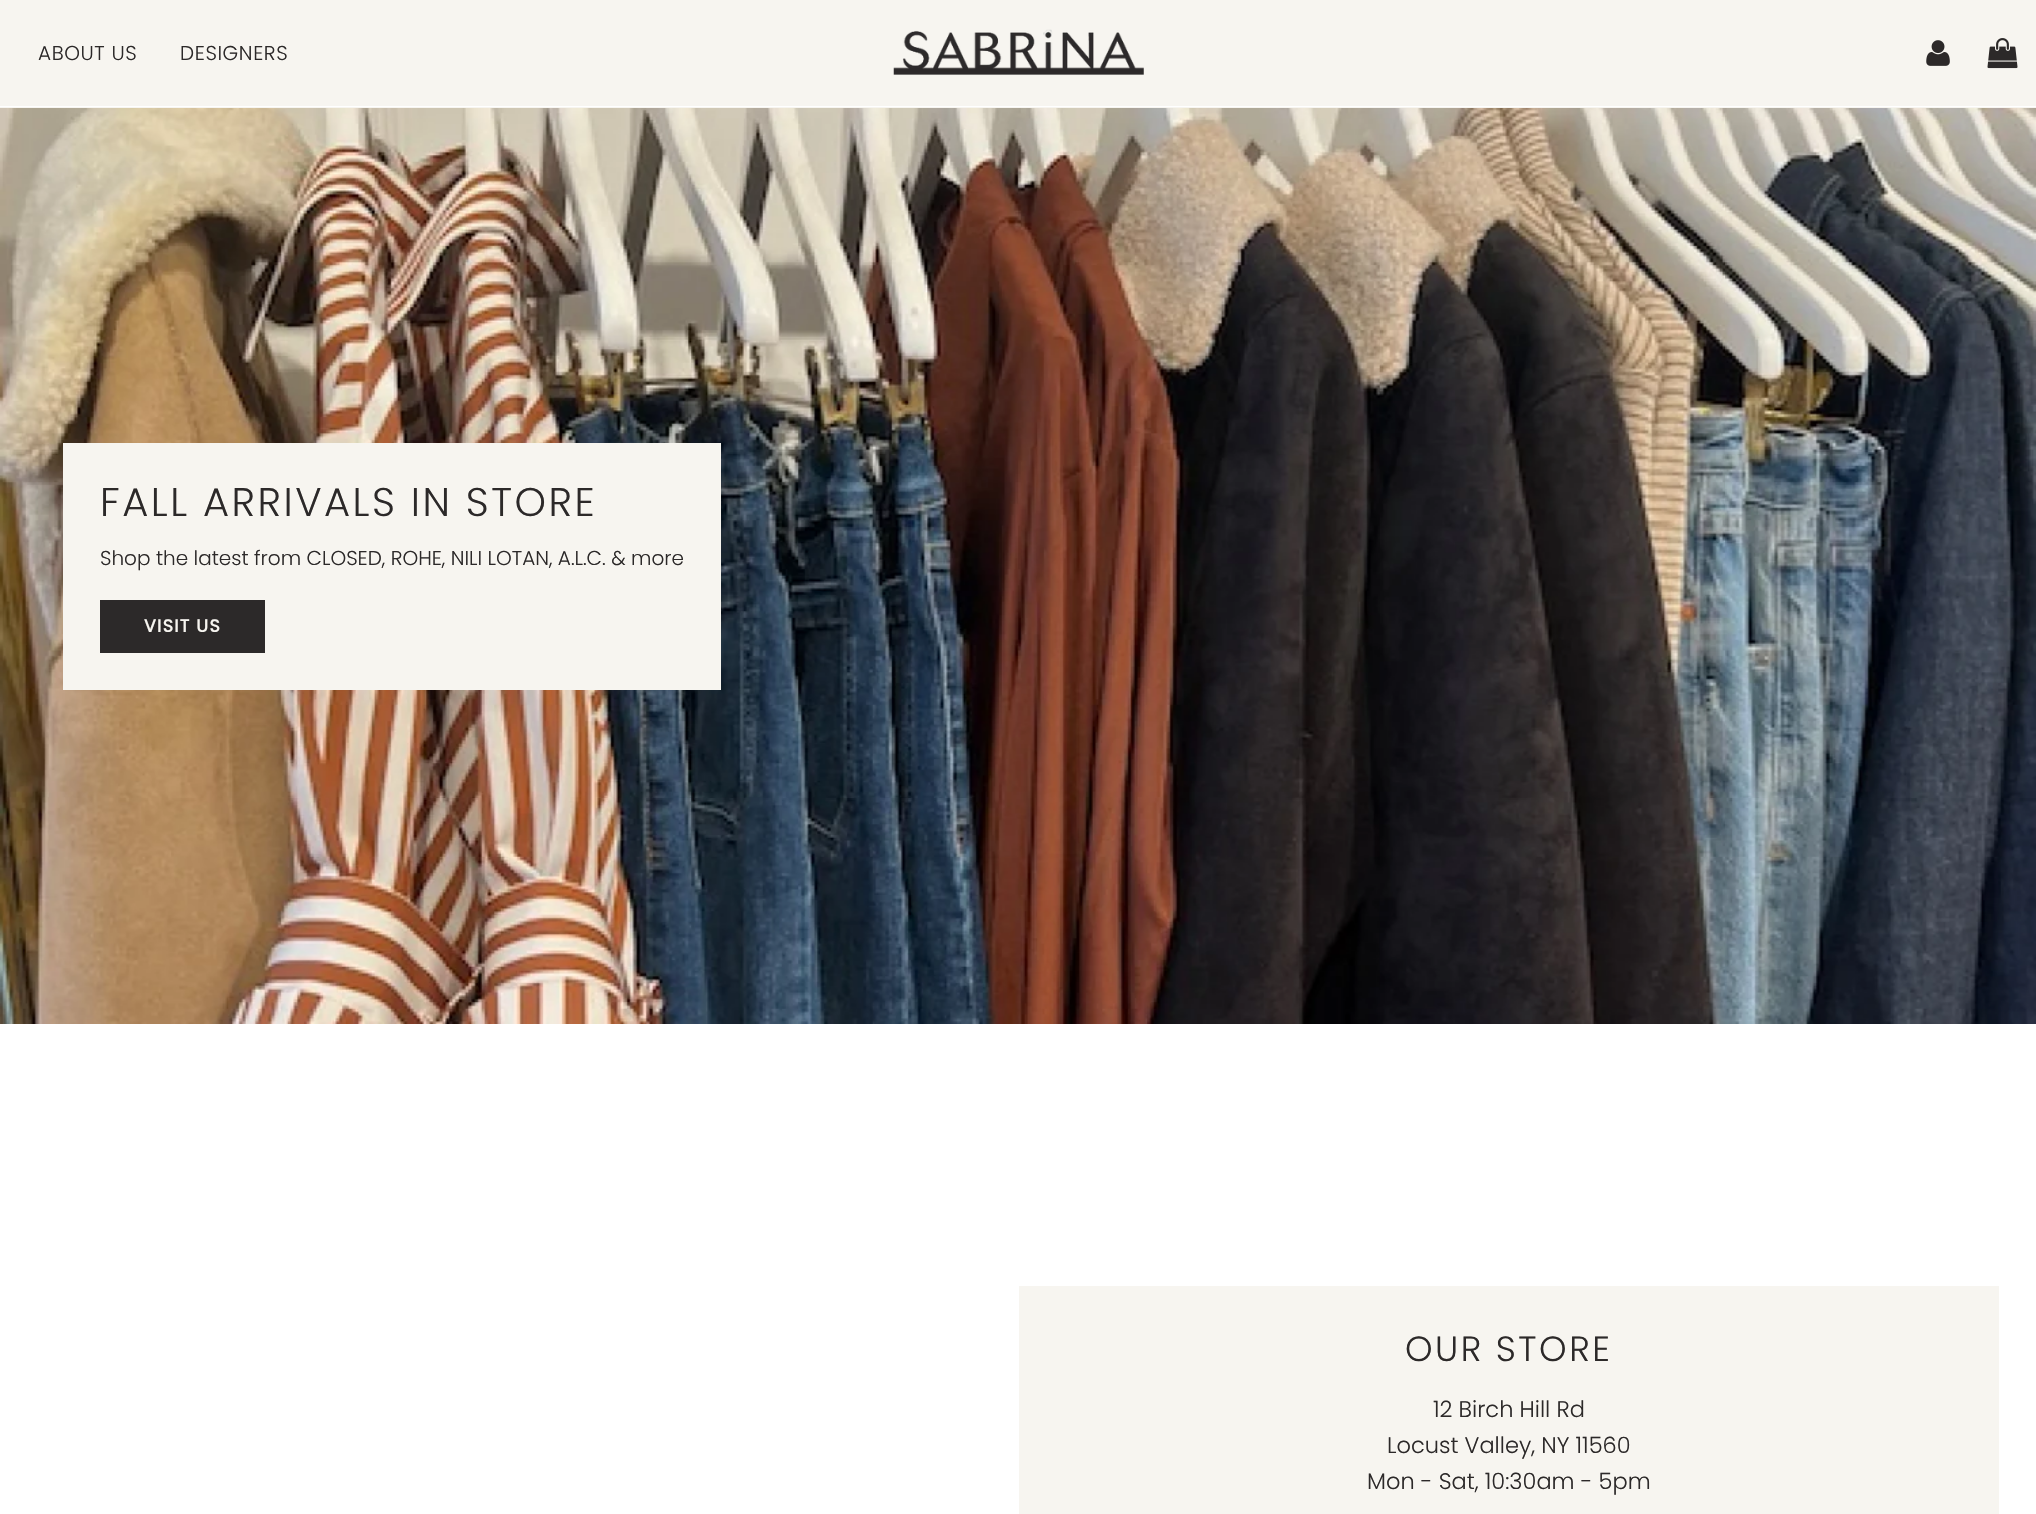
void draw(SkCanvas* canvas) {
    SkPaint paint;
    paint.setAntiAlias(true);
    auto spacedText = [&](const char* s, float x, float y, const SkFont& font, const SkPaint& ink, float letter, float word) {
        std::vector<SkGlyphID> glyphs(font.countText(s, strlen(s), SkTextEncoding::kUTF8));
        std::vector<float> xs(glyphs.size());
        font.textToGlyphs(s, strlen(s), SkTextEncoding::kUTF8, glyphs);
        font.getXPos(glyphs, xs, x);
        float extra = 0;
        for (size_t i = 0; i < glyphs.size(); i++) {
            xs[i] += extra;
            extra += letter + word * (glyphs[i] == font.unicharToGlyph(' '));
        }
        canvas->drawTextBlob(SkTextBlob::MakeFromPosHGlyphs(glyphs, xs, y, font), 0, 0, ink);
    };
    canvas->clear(0xFFFFFFFF);
    paint.setColor(0xFFF7F5F0);
    canvas->drawRect(SkRect::MakeXYWH(0, 0, 2036, 108), paint);
    paint.setColor(0xFFFFFFFF);
    canvas->drawRect(SkRect::MakeXYWH(0, 106, 2036, 1), paint);
    SkFont font1(fontMgr->matchFamilyStyle("Poppins", SkFontStyle(300, SkFontStyle::kNormal_Width, SkFontStyle::kUpright_Slant)), 20);
    font1.setSubpixel(true);
    paint.setColor(0xFF2C2929);
    spacedText("ABOUT US", 38, 60, font1, paint, 0.6f, 0);
    spacedText("DESIGNERS", 180, 60, font1, paint, 0.6f, 0);
    canvas->drawImageRect(SkImages::DeferredFromEncodedData(SkData::MakeFromFileName("img1.png")), SkRect::MakeXYWH(893, 29, 251, 46), SkSamplingOptions());
    canvas->drawImageRect(SkImages::DeferredFromEncodedData(SkData::MakeFromFileName("img2.png")), SkRect::MakeXYWH(1926, 40, 24, 26), SkSamplingOptions());
    canvas->drawImageRect(SkImages::DeferredFromEncodedData(SkData::MakeFromFileName("img3.png")), SkRect::MakeXYWH(1987, 38, 31, 31), SkSamplingOptions());
    canvas->drawImageRect(SkImages::DeferredFromEncodedData(SkData::MakeFromFileName("img4.png")), SkRect::MakeXYWH(0, 108, 2036, 916), SkSamplingOptions());
    paint.setColor(0xFFF7F5F0);
    canvas->drawRect(SkRect::MakeXYWH(63, 443, 658, 247), paint);
    SkFont font2(fontMgr->matchFamilyStyle("Poppins", SkFontStyle(300, SkFontStyle::kNormal_Width, SkFontStyle::kUpright_Slant)), 40);
    font2.setSubpixel(true);
    paint.setColor(0xFF2C2929);
    spacedText("FALL ARRIVALS IN STORE", 100, 516, font2, paint, 2.5f, 0);
    canvas->drawString("Shop the latest from CLOSED, ROHE, NILI LOTAN, A.L.C. & more", 100, 565, font1, paint);
    canvas->drawRect(SkRect::MakeXYWH(100, 600, 165, 53), paint);
    SkFont font3(fontMgr->matchFamilyStyle("Poppins", SkFontStyle::Bold()), 17.5f);
    font3.setSubpixel(true);
    paint.setColor(0xFFF7F5F0);
    spacedText("VISIT US", 144, 632, font3, paint, 1.25f, 0);
    canvas->drawRect(SkRect::MakeXYWH(1019, 1286, 980, 228), paint);
    SkFont font4(fontMgr->matchFamilyStyle("Poppins", SkFontStyle(300, SkFontStyle::kNormal_Width, SkFontStyle::kUpright_Slant)), 35);
    font4.setSubpixel(true);
    paint.setColor(0xFF2C2929);
    spacedText("OUR STORE", 1405, 1361, font4, paint, 2.5f, 0);
    SkFont font5(fontMgr->matchFamilyStyle("Poppins", SkFontStyle(300, SkFontStyle::kNormal_Width, SkFontStyle::kUpright_Slant)), 22.5f);
    font5.setSubpixel(true);
    canvas->drawString("12 Birch Hill Rd", 1433, 1417, font5, paint);
    canvas->drawString("Locust Valley, NY 11560", 1387, 1453, font5, paint);
    canvas->drawString("Mon - Sat, 10:30am - 5pm", 1367, 1489, font5, paint);
}
